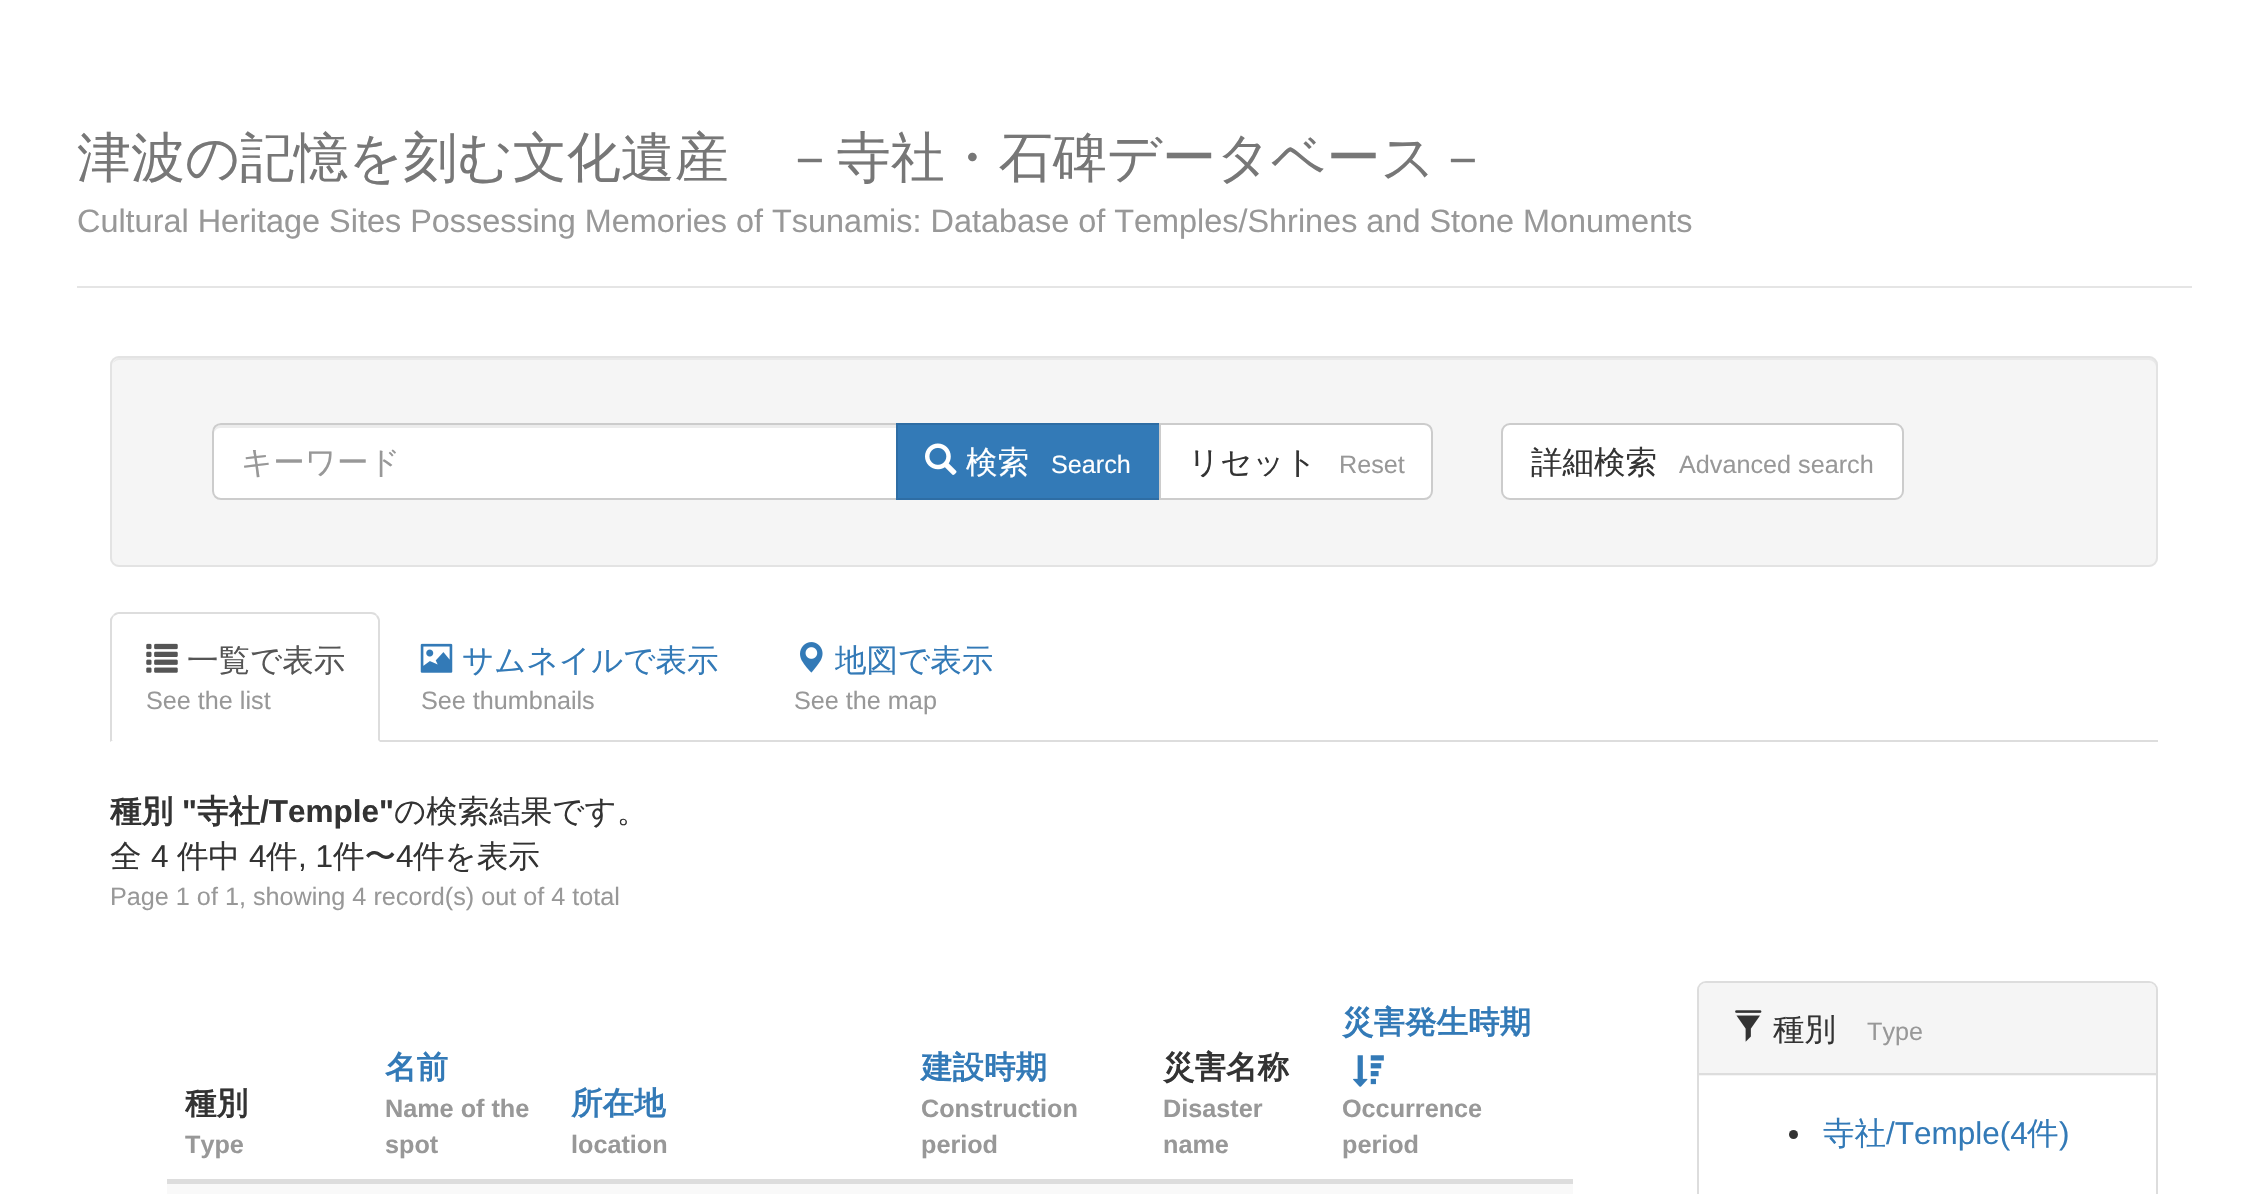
void draw(SkCanvas* canvas) {
    SkPaint paint;
    paint.setAntiAlias(true);
    canvas->clear(0xFFFFFFFF);
    paint.setColor(0xFFE5E5E5);
    canvas->drawRect(SkRect::MakeXYWH(77, 286, 2115, 2), paint);
    SkFont font1(fontMgr->matchFamilyStyle("WenQuanYi Zen Hei", SkFontStyle(500, SkFontStyle::kNormal_Width, SkFontStyle::kUpright_Slant)), 54);
    font1.setSubpixel(true);
    paint.setColor(0xFF777777);
    canvas->drawString("津波の記憶を刻む文化遺産　－寺社・石碑データベース－", 77, 176, font1, paint);
    SkFont font2(fontMgr->matchFamilyStyle("Liberation Sans", SkFontStyle::Normal()), 32.4f);
    font2.setSubpixel(true);
    paint.setColor(0xFF989898);
    canvas->drawString("Cultural Heritage Sites Possessing Memories of Tsunamis: Database of Temples/Shrines and Stone Monuments", 77, 232, font2, paint);
    paint.setColor(0xFFF5F5F5);
    canvas->drawRoundRect(SkRect::MakeXYWH(110, 356, 2048, 211), 9, 9, paint);
    paint.setColor(0xFFE9E9E9);
    canvas->drawPath(SkPathBuilder().moveTo(119, 360).lineTo(2149, 360).cubicTo(2152, 360, 2156, 363, 2156, 367).lineTo(2156, 365).cubicTo(2156, 361, 2153, 358, 2149, 358).lineTo(120, 358).cubicTo(117, 358, 114, 360, 113, 363).cubicTo(115, 361, 117, 360, 119, 360).close().detach(), paint);
    paint.setStyle(SkPaint::kStroke_Style);
    paint.setStrokeWidth(2);
    paint.setColor(0xFFE3E3E3);
    canvas->drawRoundRect(SkRect::MakeXYWH(111, 357, 2046, 209), 8, 8, paint);
    paint.setStyle(SkPaint::kFill_Style);
    paint.setColor(0xFFFFFFFF);
    canvas->drawPath(SkPathBuilder().moveTo(221, 423).lineTo(898, 423).lineTo(898, 500).lineTo(221, 500).cubicTo(216, 500, 212, 496, 212, 491).lineTo(212, 432).cubicTo(212, 427, 216, 423, 221, 423).close().detach(), paint);
    paint.setColor(0xFFECECEC);
    canvas->drawPath(SkPathBuilder().moveTo(220, 428).lineTo(896, 428).lineTo(896, 425).lineTo(221, 425).cubicTo(216, 425, 214, 430, 214, 434).cubicTo(214, 431, 217, 428, 220, 428).close().detach(), paint);
    paint.setStyle(SkPaint::kStroke_Style);
    paint.setColor(0xFFCCCCCC);
    canvas->drawPath(SkPathBuilder().moveTo(221, 424).lineTo(897, 424).lineTo(897, 499).lineTo(221, 499).cubicTo(216.5f, 499, 213, 495.5f, 213, 491).lineTo(213, 432).cubicTo(213, 427.5f, 216.5f, 424, 221, 424).close().detach(), paint);
    SkFont font3(fontMgr->matchFamilyStyle("WenQuanYi Zen Hei", SkFontStyle(500, SkFontStyle::kNormal_Width, SkFontStyle::kUpright_Slant)), 31.5f);
    font3.setSubpixel(true);
    paint.setStyle(SkPaint::kFill_Style);
    paint.setColor(0xFF989898);
    canvas->drawString("キーワード", 241, 473, font3, paint);
    paint.setColor(0xFF337AB7);
    canvas->drawRect(SkRect::MakeXYWH(897, 424, 263, 75), paint);
    paint.setStyle(SkPaint::kStroke_Style);
    paint.setColor(0xFF2E6DA4);
    canvas->drawRect(SkRect::MakeXYWH(897, 424, 263, 75), paint);
    canvas->drawImageRect(SkImages::DeferredFromEncodedData(SkData::MakeFromFileName("img1.png")), SkRect::MakeXYWH(925, 443, 32, 32), SkSamplingOptions());
    paint.setStyle(SkPaint::kFill_Style);
    paint.setColor(0xFFFFFFFF);
    canvas->drawString("検索", 966, 473, font3, paint);
    SkFont font4(fontMgr->matchFamilyStyle("Liberation Sans", SkFontStyle::Normal()), 25.2f);
    font4.setSubpixel(true);
    canvas->drawString("Search", 1051, 473, font4, paint);
    canvas->drawPath(SkPathBuilder().moveTo(1160, 424).lineTo(1424, 424).cubicTo(1428.5f, 424, 1432, 427.5f, 1432, 432).lineTo(1432, 491).cubicTo(1432, 495.5f, 1428.5f, 499, 1424, 499).lineTo(1160, 499).close().detach(), paint);
    paint.setStyle(SkPaint::kStroke_Style);
    paint.setColor(0xFFCCCCCC);
    canvas->drawPath(SkPathBuilder().moveTo(1160, 424).lineTo(1424, 424).cubicTo(1428.5f, 424, 1432, 427.5f, 1432, 432).lineTo(1432, 491).cubicTo(1432, 495.5f, 1428.5f, 499, 1424, 499).lineTo(1160, 499).close().detach(), paint);
    paint.setStyle(SkPaint::kFill_Style);
    paint.setColor(0xFF333333);
    canvas->drawString("リセット", 1188, 473, font3, paint);
    paint.setColor(0xFF989898);
    canvas->drawString("Reset", 1339, 473, font4, paint);
    paint.setColor(0xFFFFFFFF);
    canvas->drawRoundRect(SkRect::MakeXYWH(1502, 424, 401, 75), 8, 8, paint);
    paint.setStyle(SkPaint::kStroke_Style);
    paint.setColor(0xFFCCCCCC);
    canvas->drawRoundRect(SkRect::MakeXYWH(1502, 424, 401, 75), 8, 8, paint);
    paint.setStyle(SkPaint::kFill_Style);
    paint.setColor(0xFF333333);
    canvas->drawString("詳細検索", 1531, 473, font3, paint);
    paint.setColor(0xFF989898);
    canvas->drawString("Advanced search", 1679, 473, font4, paint);
    paint.setColor(0xFFDDDDDD);
    canvas->drawRect(SkRect::MakeXYWH(380, 740, 1778, 2), paint);
    canvas->drawPath(SkPathBuilder().moveTo(119, 612).cubicTo(117, 612, 114, 613, 113, 615).lineTo(114, 616).lineTo(118, 614).lineTo(371, 614).cubicTo(373, 614, 375, 615, 376, 616).lineTo(377, 615).cubicTo(376, 613, 374, 612, 371, 612).close().detach(), paint);
    canvas->drawPath(SkPathBuilder().moveTo(377, 615).cubicTo(379, 616, 380, 619, 380, 621).lineTo(380, 742).lineTo(378, 740).lineTo(378, 620).lineTo(376, 616).close().detach(), paint);
    canvas->drawPath(SkPathBuilder().moveTo(110, 619).cubicTo(111, 617, 112, 616, 113, 615).lineTo(114, 616).cubicTo(113, 617, 112, 619, 112, 621).lineTo(112, 740).lineTo(113, 740).lineTo(110, 742).close().detach(), paint);
    canvas->drawImageRect(SkImages::DeferredFromEncodedData(SkData::MakeFromFileName("img2.png")), SkRect::MakeXYWH(146, 643, 32, 30), SkSamplingOptions());
    paint.setColor(0xFF555555);
    canvas->drawString("一覧で表示", 187, 671, font3, paint);
    paint.setColor(0xFF989898);
    canvas->drawString("See the list", 146, 709, font4, paint);
    canvas->drawImageRect(SkImages::DeferredFromEncodedData(SkData::MakeFromFileName("img3.png")), SkRect::MakeXYWH(420, 643, 33, 30), SkSamplingOptions());
    paint.setColor(0xFF337AB7);
    canvas->drawString("サムネイルで表示", 462, 671, font3, paint);
    paint.setColor(0xFF989898);
    canvas->drawString("See thumbnails", 421, 709, font4, paint);
    canvas->drawImageRect(SkImages::DeferredFromEncodedData(SkData::MakeFromFileName("img4.png")), SkRect::MakeXYWH(800, 642, 23, 31), SkSamplingOptions());
    paint.setColor(0xFF337AB7);
    canvas->drawString("地図で表示", 835, 671, font3, paint);
    paint.setColor(0xFF989898);
    canvas->drawString("See the map", 794, 709, font4, paint);
    SkFont font5(fontMgr->matchFamilyStyle("WenQuanYi Zen Hei", SkFontStyle::Bold()), 31.5f);
    font5.setSubpixel(true);
    paint.setColor(0xFF333333);
    canvas->drawString("種別", 110, 822, font5, paint);
    SkFont font6(fontMgr->matchFamilyStyle("Liberation Sans", SkFontStyle::Bold()), 31.5f);
    font6.setSubpixel(true);
    canvas->drawString("\"", 182, 822, font6, paint);
    canvas->drawString("寺社", 197, 822, font5, paint);
    canvas->drawString("/Temple\"", 260, 822, font6, paint);
    canvas->drawString("の検索結果です。", 394, 822, font3, paint);
    canvas->drawString("全", 110, 867, font3, paint);
    SkFont font7(fontMgr->matchFamilyStyle("Liberation Sans", SkFontStyle::Normal()), 31.5f);
    font7.setSubpixel(true);
    canvas->drawString("4", 151, 867, font7, paint);
    canvas->drawString("件中", 177, 867, font3, paint);
    canvas->drawString("4", 249, 867, font7, paint);
    canvas->drawString("件", 266, 867, font3, paint);
    canvas->drawString(", 1", 298, 867, font7, paint);
    canvas->drawString("件〜", 333, 867, font3, paint);
    canvas->drawString("4", 396, 867, font7, paint);
    canvas->drawString("件を表示", 413, 867, font3, paint);
    paint.setColor(0xFF989898);
    canvas->drawString("Page 1 of 1, showing 4 record(s) out of 4 total", 110, 905, font4, paint);
    paint.setColor(0xFF333333);
    canvas->drawString("種別", 185, 1114, font5, paint);
    SkFont font8(fontMgr->matchFamilyStyle("Liberation Sans", SkFontStyle::Bold()), 25.2f);
    font8.setSubpixel(true);
    paint.setColor(0xFF989898);
    canvas->drawString("Type", 185, 1153, font8, paint);
    paint.setColor(0xFF337AB7);
    canvas->drawString("名前", 385, 1078, font5, paint);
    paint.setColor(0xFF989898);
    canvas->drawString("Name of the", 385, 1117, font8, paint);
    canvas->drawString("spot", 385, 1153, font8, paint);
    paint.setColor(0xFF337AB7);
    canvas->drawString("所在地", 571, 1114, font5, paint);
    paint.setColor(0xFF989898);
    canvas->drawString("location", 571, 1153, font8, paint);
    paint.setColor(0xFF337AB7);
    canvas->drawString("建設時期", 921, 1078, font5, paint);
    paint.setColor(0xFF989898);
    canvas->drawString("Construction", 921, 1117, font8, paint);
    canvas->drawString("period", 921, 1153, font8, paint);
    paint.setColor(0xFF333333);
    canvas->drawString("災害名称", 1163, 1078, font5, paint);
    paint.setColor(0xFF989898);
    canvas->drawString("Disaster", 1163, 1117, font8, paint);
    canvas->drawString("name", 1163, 1153, font8, paint);
    paint.setColor(0xFFDDDDDD);
    canvas->drawRect(SkRect::MakeXYWH(167, 1179, 1406, 5), paint);
    paint.setColor(0xFF337AB7);
    canvas->drawString("災害発生時期", 1342, 1033, font5, paint);
    canvas->drawImageRect(SkImages::DeferredFromEncodedData(SkData::MakeFromFileName("img5.png")), SkRect::MakeXYWH(1353, 1055, 31, 32), SkSamplingOptions());
    paint.setColor(0xFF989898);
    canvas->drawString("Occurrence", 1342, 1117, font8, paint);
    canvas->drawString("period", 1342, 1153, font8, paint);
    paint.setColor(0xFFF9F9F9);
    canvas->drawRect(SkRect::MakeXYWH(167, 1184, 1406, 10), paint);
    paint.setStyle(SkPaint::kStroke_Style);
    paint.setColor(0xFFDDDDDD);
    canvas->drawRoundRect(SkRect::MakeXYWH(1698, 982, 459, 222), 8, 8, paint);
    paint.setStyle(SkPaint::kFill_Style);
    paint.setColor(0xFFF5F5F5);
    canvas->drawPath(SkPathBuilder().moveTo(1706, 983).lineTo(2149, 983).cubicTo(2153, 983, 2156, 986, 2156, 990).lineTo(2156, 1076).lineTo(1699, 1076).lineTo(1699, 990).cubicTo(1699, 986, 1702, 983, 1706, 983).close().detach(), paint);
    paint.setColor(0xFFDDDDDD);
    canvas->drawRect(SkRect::MakeXYWH(1699, 1073, 457, 2), paint);
    canvas->drawImageRect(SkImages::DeferredFromEncodedData(SkData::MakeFromFileName("img6.png")), SkRect::MakeXYWH(1735, 1010, 27, 32), SkSamplingOptions());
    paint.setColor(0xFF333333);
    canvas->drawString("種別", 1773, 1040, font3, paint);
    paint.setColor(0xFF989898);
    canvas->drawString("Type", 1867, 1040, font4, paint);
    paint.setColor(0xFF333333);
    canvas->drawCircle(1793.5f, 1134.5f, 4.5f, paint);
    paint.setColor(0xFF337AB7);
    canvas->drawString("寺社", 1823, 1144, font3, paint);
    canvas->drawString("/Temple(4", 1886, 1144, font7, paint);
    canvas->drawString("件", 2027, 1144, font3, paint);
    canvas->drawString(")", 2059, 1144, font7, paint);
}
